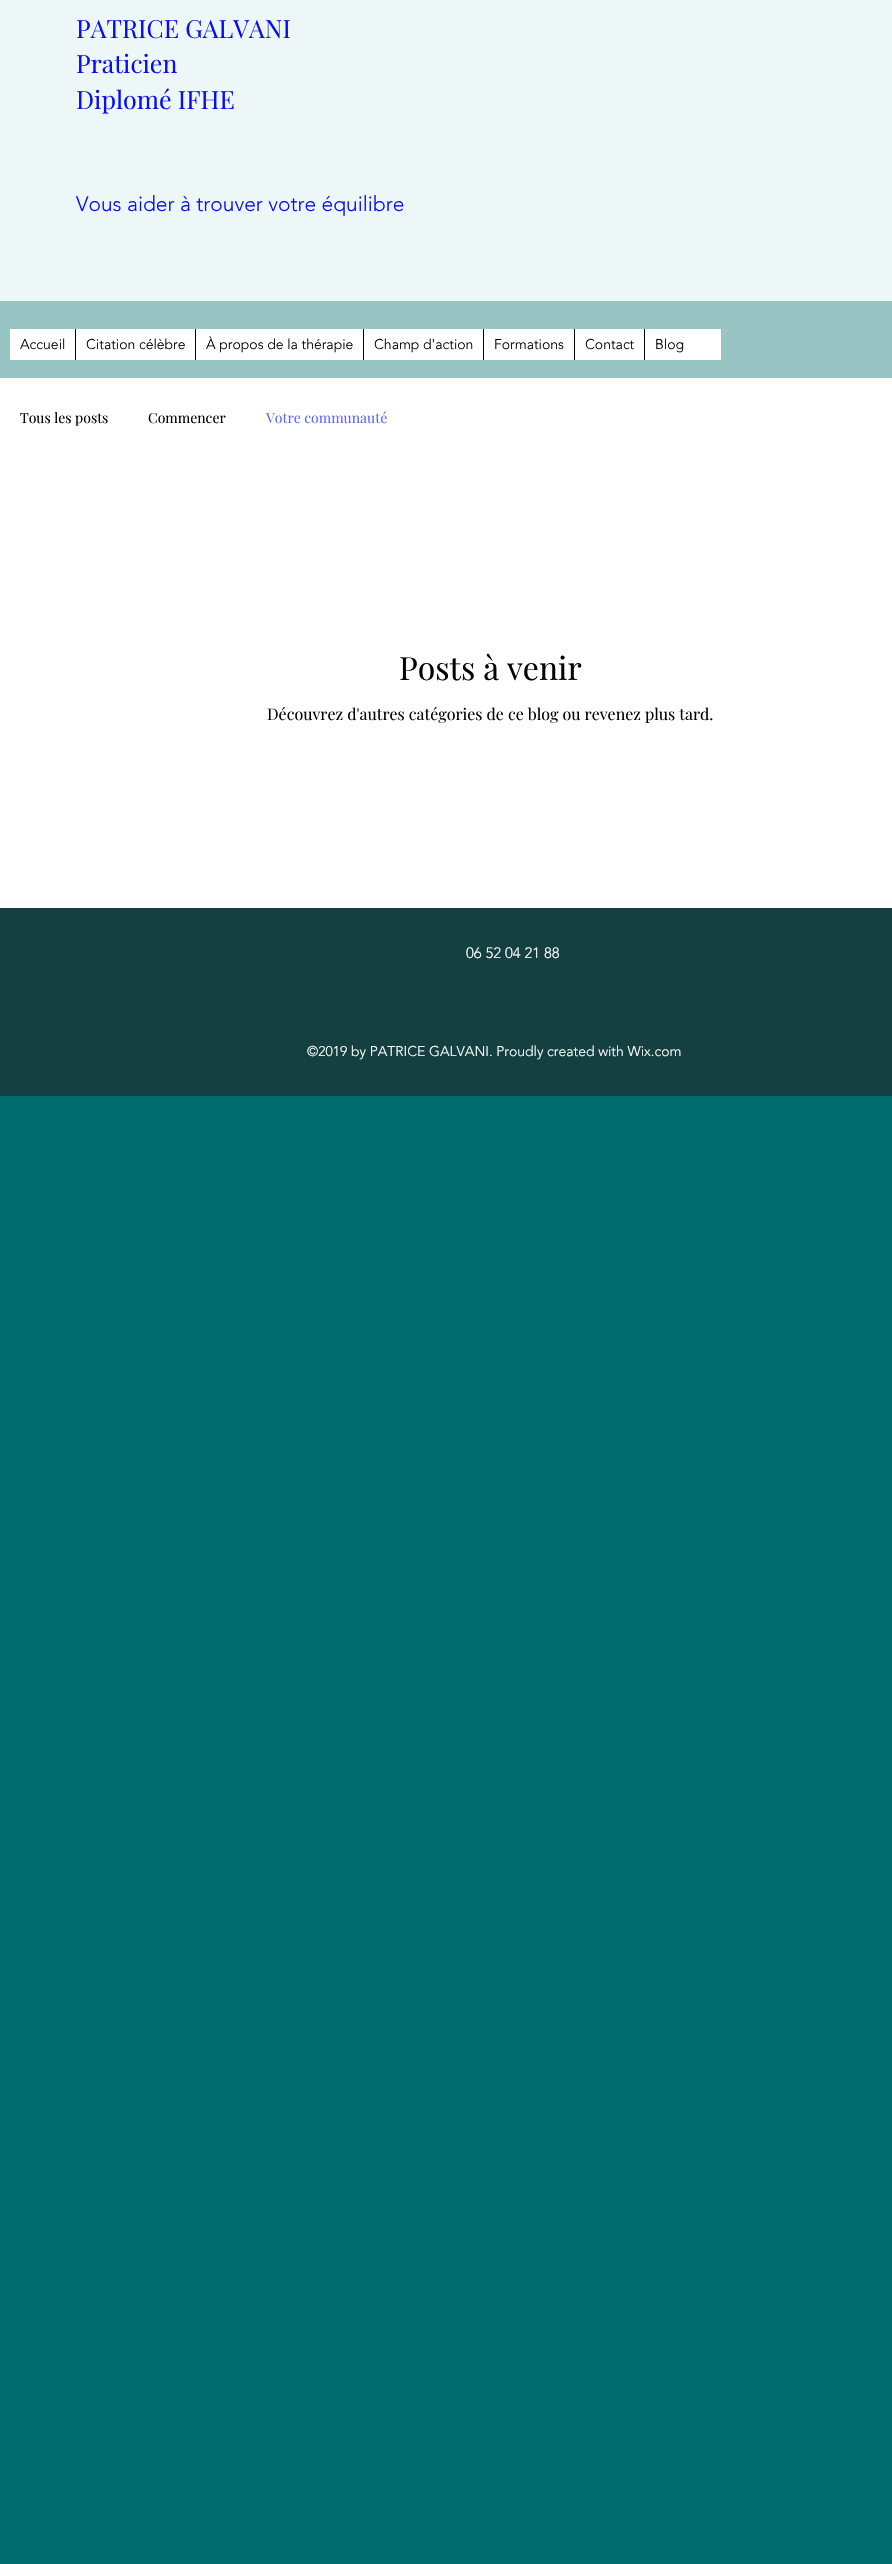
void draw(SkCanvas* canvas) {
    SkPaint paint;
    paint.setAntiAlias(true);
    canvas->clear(0xFF006C6D);
    paint.setColor(0xFFEDF7F7);
    canvas->drawRect(SkRect::MakeXYWH(0, 0, 892, 301), paint);
    SkFont font1(fontMgr->matchFamilyStyle("Playfair Display", SkFontStyle::Normal()), 25);
    font1.setSubpixel(true);
    paint.setColor(0xFF080EF4);
    canvas->drawString("PATRICE GALVANI", 76, 38, font1, paint);
    canvas->drawString("Praticien", 76, 73, font1, paint);
    canvas->drawString("Diplomé IFHE", 76, 109, font1, paint);
    SkFont font2(fontMgr->matchFamilyStyle("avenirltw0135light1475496", SkFontStyle(300, SkFontStyle::kNormal_Width, SkFontStyle::kUpright_Slant)), 21);
    font2.setSubpixel(true);
    canvas->drawString("Vous aider à trouver votre équilibre", 76, 211, font2, paint);
    paint.setColor(0xFF99C4C4);
    canvas->drawRect(SkRect::MakeXYWH(0, 301, 892, 77), paint);
    paint.setColor(0xFFFFFFFF);
    canvas->drawRect(SkRect::MakeXYWH(10, 329, 711, 31), paint);
    SkFont font3(fontMgr->matchFamilyStyle("avenirltw0135light1475496", SkFontStyle(300, SkFontStyle::kNormal_Width, SkFontStyle::kUpright_Slant)), 14);
    font3.setSubpixel(true);
    paint.setColor(0xFF000000);
    canvas->drawString("Accueil", 20, 349, font3, paint);
    canvas->drawRect(SkRect::MakeXYWH(75, 329, 1, 31), paint);
    canvas->drawString("Citation célèbre", 86, 349, font3, paint);
    canvas->drawRect(SkRect::MakeXYWH(195, 329, 1, 31), paint);
    canvas->drawString("À propos de la thérapie", 206, 349, font3, paint);
    canvas->drawRect(SkRect::MakeXYWH(363, 329, 1, 31), paint);
    canvas->drawString("Champ d'action", 374, 349, font3, paint);
    canvas->drawRect(SkRect::MakeXYWH(483, 329, 1, 31), paint);
    canvas->drawString("Formations", 494, 349, font3, paint);
    canvas->drawRect(SkRect::MakeXYWH(574, 329, 1, 31), paint);
    canvas->drawString("Contact", 585, 349, font3, paint);
    canvas->drawRect(SkRect::MakeXYWH(644, 329, 1, 31), paint);
    canvas->drawString("Blog", 655, 349, font3, paint);
    paint.setColor(0xFFFFFFFF);
    canvas->drawRect(SkRect::MakeXYWH(0, 378, 892, 530), paint);
    SkFont font4(fontMgr->matchFamilyStyle("Playfair Display", SkFontStyle::Normal()), 14);
    font4.setSubpixel(true);
    paint.setColor(0xFF000000);
    canvas->drawString("Tous les posts", 20, 423, font4, paint);
    canvas->drawString("Commencer", 148, 423, font4, paint);
    paint.setColor(0xFF6165FA);
    canvas->drawString("Votre communauté", 266, 423, font4, paint);
    SkFont font5(fontMgr->matchFamilyStyle("Playfair Display", SkFontStyle::Normal()), 32);
    font5.setSubpixel(true);
    paint.setColor(0xFF000000);
    canvas->drawString("Posts à venir", 399, 680, font5, paint);
    SkFont font6(fontMgr->matchFamilyStyle("Playfair Display", SkFontStyle::Normal()), 16);
    font6.setSubpixel(true);
    canvas->drawString("Découvrez d'autres catégories de ce blog ou revenez plus tard.", 267, 720, font6, paint);
    paint.setColor(0xFF154041);
    canvas->drawRect(SkRect::MakeXYWH(0, 908, 892, 188), paint);
    SkFont font7(fontMgr->matchFamilyStyle("avenirltw0135light1475496", SkFontStyle(300, SkFontStyle::kNormal_Width, SkFontStyle::kUpright_Slant)), 15);
    font7.setSubpixel(true);
    paint.setColor(0xFFFFFFFF);
    canvas->drawString("06 52 04 21 88", 466, 958, font7, paint);
    canvas->drawString("©2019 by PATRICE GALVANI. Proudly created with Wix.com", 307, 1056, font3, paint);
}
